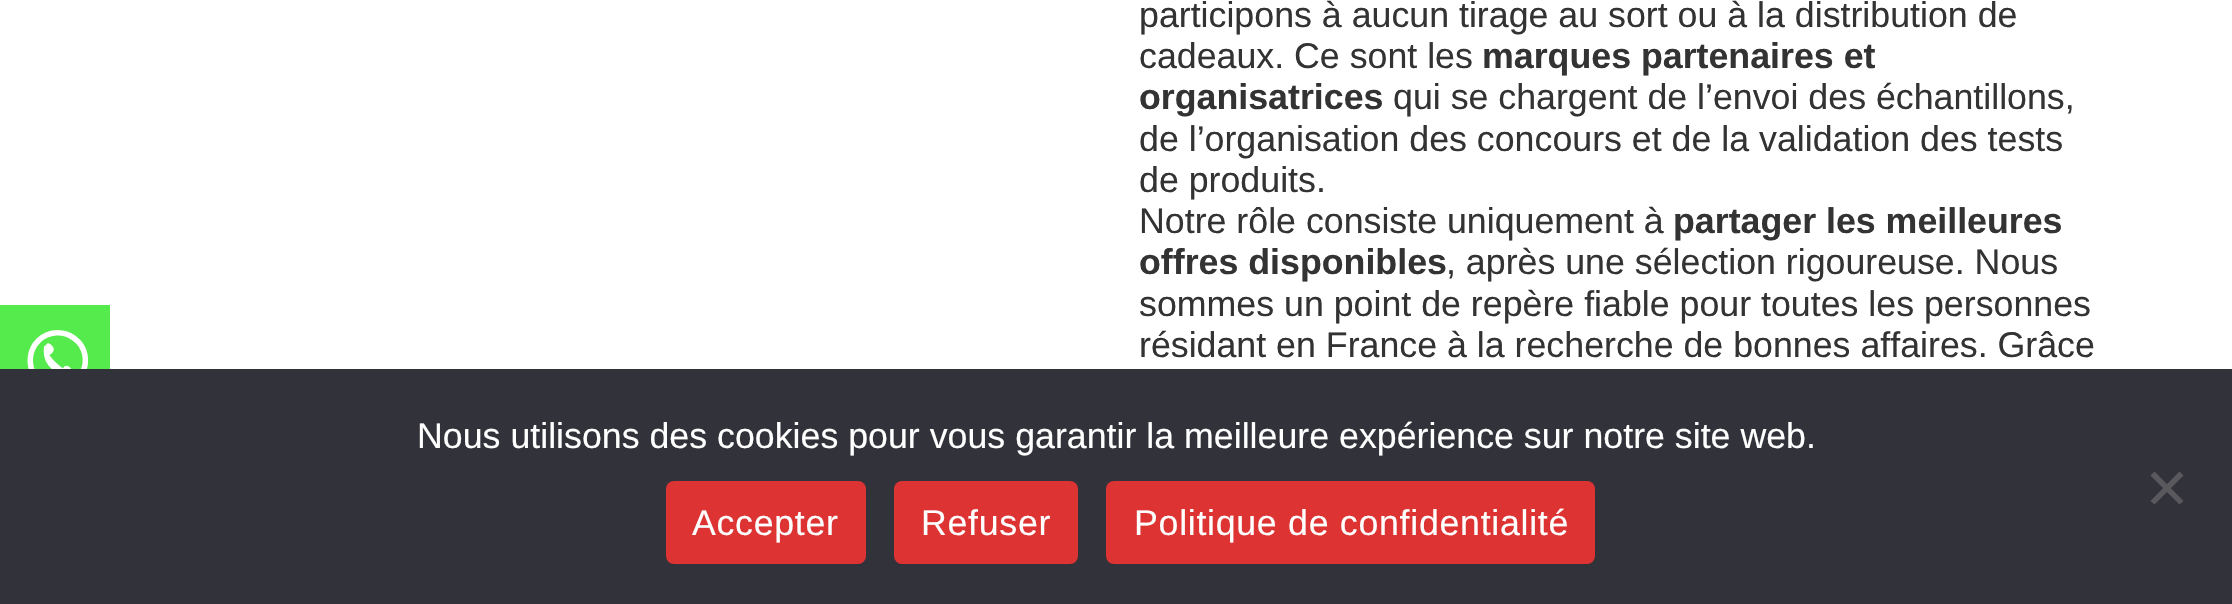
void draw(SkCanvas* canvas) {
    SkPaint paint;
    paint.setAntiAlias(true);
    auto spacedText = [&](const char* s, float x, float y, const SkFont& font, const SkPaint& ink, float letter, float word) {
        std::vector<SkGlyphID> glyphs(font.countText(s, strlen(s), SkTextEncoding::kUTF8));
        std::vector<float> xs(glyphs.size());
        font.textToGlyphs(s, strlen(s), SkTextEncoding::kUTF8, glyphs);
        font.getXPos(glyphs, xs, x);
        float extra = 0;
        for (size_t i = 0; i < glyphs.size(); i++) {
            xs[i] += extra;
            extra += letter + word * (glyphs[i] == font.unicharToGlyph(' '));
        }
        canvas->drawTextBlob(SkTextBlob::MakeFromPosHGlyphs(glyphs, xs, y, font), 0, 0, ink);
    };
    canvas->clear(0xFFFFFFFF);
    paint.setColor(0xFF55EB4C);
    canvas->drawRect(SkRect::MakeXYWH(0, 305, 110, 64), paint);
    paint.setStyle(SkPaint::kStroke_Style);
    paint.setStrokeWidth(5.5f);
    paint.setColor(0xFFFFFFFF);
    canvas->drawPath(SkPathBuilder().moveTo(48.5f, 386).cubicTo(61, 390.5f, 75.5f, 385.5f, 82, 373.5f).cubicTo(88.5f, 361.5f, 85.5f, 346.5f, 74.5f, 338.5f).cubicTo(63.5f, 330, 48.5f, 331, 38.5f, 340.5f).cubicTo(29, 350, 27.5f, 365, 35, 376).detach(), paint);
    paint.setStyle(SkPaint::kFill_Style);
    canvas->drawPath(SkPathBuilder().moveTo(44, 346.5f).cubicTo(42, 361, 49.5f, 371, 66, 377).cubicTo(80, 374, 66, 360, 63, 368.5f).cubicTo(56, 363, 51.5f, 358.5f, 49.5f, 355).cubicTo(60.5f, 349, 47, 341, 47, 344).detach(), paint);
    SkFont font1(fontMgr->matchFamilyStyle("Liberation Sans", SkFontStyle::Normal()), 35.75f);
    font1.setSubpixel(true);
    paint.setColor(0xFF333333);
    canvas->drawString("participons à aucun tirage au sort ou à la distribution de", 1139, 27, font1, paint);
    canvas->drawString("cadeaux. Ce sont les", 1139, 68, font1, paint);
    SkFont font2(fontMgr->matchFamilyStyle("Liberation Sans", SkFontStyle::Bold()), 35.75f);
    font2.setSubpixel(true);
    canvas->drawString("marques partenaires et", 1482, 68, font2, paint);
    canvas->drawString("organisatrices", 1139, 109, font2, paint);
    canvas->drawString("qui se chargent de l’envoi des échantillons,", 1393, 109, font1, paint);
    canvas->drawString("de l’organisation des concours et de la validation des tests", 1139, 151, font1, paint);
    canvas->drawString("de produits.", 1139, 192, font1, paint);
    canvas->drawString("Notre rôle consiste uniquement à", 1139, 233, font1, paint);
    canvas->drawString("partager les meilleures", 1673, 233, font2, paint);
    canvas->drawString("offres disponibles", 1139, 274, font2, paint);
    canvas->drawString(", après une sélection rigoureuse. Nous", 1446, 274, font1, paint);
    canvas->drawString("sommes un point de repère fiable pour toutes les personnes", 1139, 316, font1, paint);
    canvas->drawString("résidant en France à la recherche de bonnes affaires. Grâce", 1139, 357, font1, paint);
    paint.setColor(0xFF32323A);
    canvas->drawRect(SkRect::MakeXYWH(0, 369, 2232, 235), paint);
    paint.setColor(0xFFFFFFFF);
    canvas->drawString("Nous utilisons des cookies pour vous garantir la meilleure expérience sur notre site web.", 417, 448, font1, paint);
    paint.setColor(0xFF59595D);
    canvas->drawPath(SkPathBuilder().moveTo(2179.5f, 471.5f).lineTo(2183.5f, 475.5f).lineTo(2154.5f, 504.5f).lineTo(2150.5f, 501).close().detach(), paint);
    canvas->drawPath(SkPathBuilder().moveTo(2150.5f, 475.5f).lineTo(2154.5f, 471.5f).lineTo(2183.5f, 501).lineTo(2179.5f, 504.5f).close().detach(), paint);
    paint.setColor(0xFFDD3333);
    canvas->drawRoundRect(SkRect::MakeXYWH(666, 481, 200, 83), 8, 8, paint);
    paint.setColor(0xFFFFFFFF);
    spacedText("Accepter", 692, 535, font1, paint, 0.7f, 0);
    paint.setColor(0xFFDD3333);
    canvas->drawRoundRect(SkRect::MakeXYWH(894, 481, 184, 83), 8, 8, paint);
    paint.setColor(0xFFFFFFFF);
    spacedText("Refuser", 921, 535, font1, paint, 0.7f, 0);
    paint.setColor(0xFFDD3333);
    canvas->drawRoundRect(SkRect::MakeXYWH(1106, 481, 489, 83), 8, 8, paint);
    paint.setColor(0xFFFFFFFF);
    spacedText("Politique de confidentialité", 1134, 535, font1, paint, 0.7f, 0);
}
